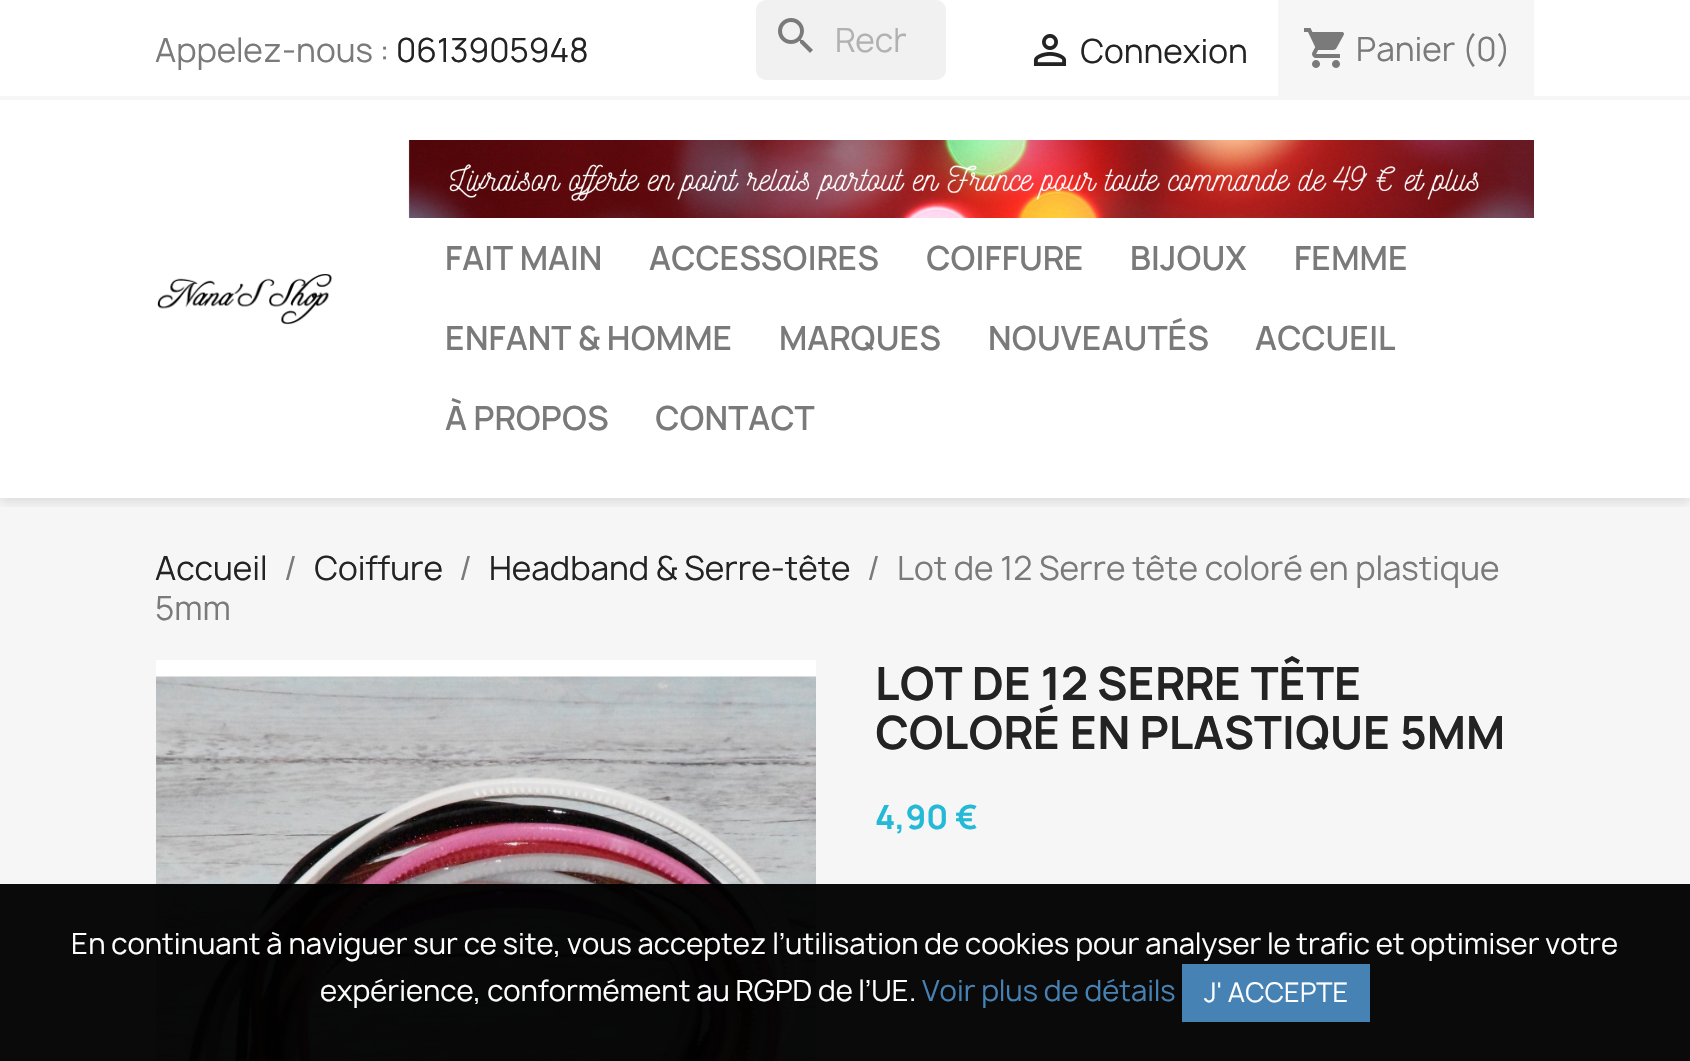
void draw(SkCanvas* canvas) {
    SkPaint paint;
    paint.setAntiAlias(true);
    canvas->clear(0xFFFFFFFF);
    paint.setColor(0xFFF6F6F6);
    canvas->drawRect(SkRect::MakeXYWH(0, 498, 1690, 563), paint);
    canvas->save();
    canvas->clipRect(SkRect::MakeXYWH(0, 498, 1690, 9));
    paint.setColor(0x1C000000);
    paint.setMaskFilter(SkMaskFilter::MakeBlur(kNormal_SkBlurStyle, 5));
    canvas->drawRect(SkRect::MakeXYWH(0, 4, 1690, 498), paint);
    paint.setMaskFilter(nullptr);
    canvas->restore();
    paint.setColor(0xFFF6F6F6);
    canvas->drawRect(SkRect::MakeXYWH(0, 96, 1690, 4), paint);
    SkFont font1(fontMgr->matchFamilyStyle("Manrope", SkFontStyle::Normal()), 32);
    font1.setSubpixel(true);
    paint.setColor(0xFF7A7A7A);
    canvas->drawString("Appelez-nous :", 155, 62, font1, paint);
    paint.setColor(0xFF232323);
    canvas->drawString("0613905948", 396, 62, font1, paint);
    paint.setColor(0xFFF1F1F1);
    canvas->drawRoundRect(SkRect::MakeXYWH(756, 0, 190, 80), 10, 10, paint);
    canvas->drawImageRect(SkImages::DeferredFromEncodedData(SkData::MakeFromFileName("img1.png")), SkRect::MakeXYWH(778, 18, 35, 35), SkSamplingOptions());
    canvas->save();
    canvas->clipRect(SkRect::MakeXYWH(836, 14, 70, 54));
    paint.setColor(0xFFB1B1B1);
    canvas->drawString("Rech", 835, 52, font1, paint);
    canvas->restore();
    canvas->drawImageRect(SkImages::DeferredFromEncodedData(SkData::MakeFromFileName("img2.png")), SkRect::MakeXYWH(1033, 34, 34, 32), SkSamplingOptions());
    paint.setColor(0xFF232323);
    canvas->drawString("Connexion", 1080, 63, font1, paint);
    paint.setColor(0xFFF6F6F6);
    canvas->drawRect(SkRect::MakeXYWH(1278, 0, 256, 96), paint);
    canvas->drawImageRect(SkImages::DeferredFromEncodedData(SkData::MakeFromFileName("img3.png")), SkRect::MakeXYWH(1304, 28, 40, 40), SkSamplingOptions());
    paint.setColor(0xFF7A7A7A);
    canvas->drawString("Panier (0)", 1356, 61, font1, paint);
    canvas->drawImageRect(SkImages::DeferredFromEncodedData(SkData::MakeFromFileName("img4.png")), SkRect::MakeXYWH(157, 274, 176, 51), SkSamplingOptions());
    canvas->drawImageRect(SkImages::DeferredFromEncodedData(SkData::MakeFromFileName("img5.png")), SkRect::MakeXYWH(408, 140, 1126, 78), SkSamplingOptions());
    SkFont font2(fontMgr->matchFamilyStyle("Manrope", SkFontStyle(600, SkFontStyle::kNormal_Width, SkFontStyle::kUpright_Slant)), 32);
    font2.setSubpixel(true);
    canvas->drawString("FAIT MAIN", 445, 270, font2, paint);
    canvas->drawString("ACCESSOIRES", 649, 270, font2, paint);
    canvas->drawString("COIFFURE", 926, 270, font2, paint);
    canvas->drawString("BIJOUX", 1130, 270, font2, paint);
    canvas->drawString("FEMME", 1294, 270, font2, paint);
    canvas->drawString("ENFANT & HOMME", 445, 350, font2, paint);
    canvas->drawString("MARQUES", 779, 350, font2, paint);
    canvas->drawString("NOUVEAUTÉS", 988, 350, font2, paint);
    canvas->drawString("ACCUEIL", 1255, 350, font2, paint);
    canvas->drawString("À PROPOS", 445, 430, font2, paint);
    canvas->drawString("CONTACT", 655, 430, font2, paint);
    paint.setColor(0xFF232323);
    canvas->drawString("Accueil", 155, 580, font1, paint);
    paint.setColor(0xFF7A7A7A);
    canvas->drawString("/", 284, 580, font1, paint);
    paint.setColor(0xFF232323);
    canvas->drawString("Coiffure", 314, 580, font1, paint);
    paint.setColor(0xFF7A7A7A);
    canvas->drawString("/", 459, 580, font1, paint);
    paint.setColor(0xFF232323);
    canvas->drawString("Headband & Serre-tête", 489, 580, font1, paint);
    paint.setColor(0xFF7A7A7A);
    canvas->drawString("/", 867, 580, font1, paint);
    canvas->drawString("Lot de 12 Serre tête coloré en plastique", 897, 580, font1, paint);
    canvas->drawString("5mm", 155, 620, font1, paint);
    paint.setColor(0xFFFFFFFF);
    canvas->drawRect(SkRect::MakeXYWH(156, 660, 660, 15), paint);
    canvas->drawImageRect(SkImages::DeferredFromEncodedData(SkData::MakeFromFileName("img6.png")), SkRect::MakeXYWH(156, 675, 660, 386), SkSamplingOptions());
    SkFont font3(fontMgr->matchFamilyStyle("Manrope", SkFontStyle::Bold()), 44);
    font3.setSubpixel(true);
    paint.setColor(0xFF232323);
    canvas->drawString("LOT DE 12 SERRE TÊTE", 875, 700, font3, paint);
    canvas->drawString("COLORÉ EN PLASTIQUE 5MM", 875, 749, font3, paint);
    SkFont font4(fontMgr->matchFamilyStyle("Manrope", SkFontStyle::Bold()), 32);
    font4.setSubpixel(true);
    paint.setColor(0xFF24B9D7);
    canvas->drawString("4,90 €", 875, 829, font4, paint);
    paint.setColor(0xCC000000);
    canvas->drawRect(SkRect::MakeXYWH(0, 884, 1690, 177), paint);
    canvas->drawRect(SkRect::MakeXYWH(0, 884, 1690, 177), paint);
    SkFont font5(fontMgr->matchFamilyStyle("Manrope", SkFontStyle::Normal()), 28);
    font5.setSubpixel(true);
    paint.setColor(0xFFFFFFFF);
    canvas->drawString("En continuant à naviguer sur ce site, vous acceptez l’utilisation de cookies pour analyser le trafic et optimiser votre", 71, 954, font5, paint);
    canvas->drawString("expérience, conformément au RGPD de l’UE.", 320, 1001, font5, paint);
    paint.setColor(0xFF4682B4);
    canvas->drawString("Voir plus de détails", 922, 1001, font5, paint);
    canvas->drawRect(SkRect::MakeXYWH(1182, 964, 188, 58), paint);
    SkFont font6(fontMgr->matchFamilyStyle("Manrope", SkFontStyle::Normal()), 26);
    font6.setSubpixel(true);
    paint.setColor(0xFFFFFFFF);
    canvas->drawString("J' ACCEPTE", 1204, 1002, font6, paint);
}
